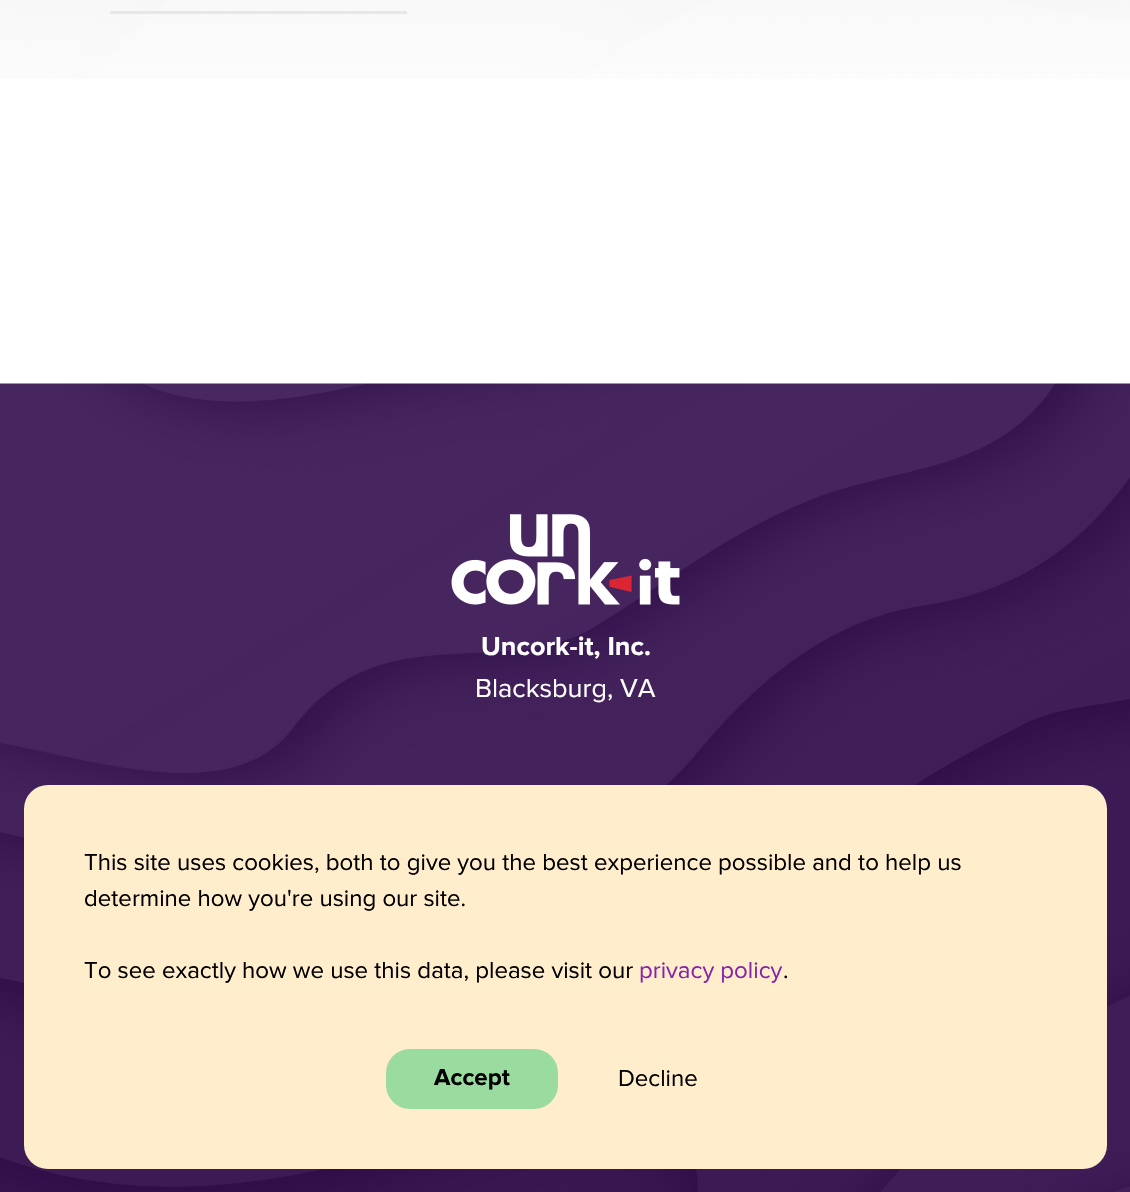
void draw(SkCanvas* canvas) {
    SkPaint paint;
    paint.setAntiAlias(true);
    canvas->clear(0xFFFFFFFF);
    canvas->drawImageRect(SkImages::DeferredFromEncodedData(SkData::MakeFromFileName("img1.png")), SkRect::MakeXYWH(0, 0, 1130, 79), SkSamplingOptions());
    paint.setColor(0xFFE5E7EB);
    canvas->drawRect(SkRect::MakeXYWH(110, 11, 297, 3), paint);
    canvas->drawImageRect(SkImages::DeferredFromEncodedData(SkData::MakeFromFileName("img2.png")), SkRect::MakeXYWH(0, 383, 1130, 809), SkSamplingOptions());
    canvas->drawImageRect(SkImages::DeferredFromEncodedData(SkData::MakeFromFileName("img3.png")), SkRect::MakeXYWH(451, 514, 229, 91), SkSamplingOptions());
    SkFont font1(fontMgr->matchFamilyStyle("Proxima Nova", SkFontStyle::Bold()), 27);
    font1.setSubpixel(true);
    paint.setColor(0xFFFFFFFF);
    canvas->drawString("Uncork-it, Inc.", 481, 655, font1, paint);
    SkFont font2(fontMgr->matchFamilyStyle("Proxima Nova", SkFontStyle::Normal()), 27);
    font2.setSubpixel(true);
    canvas->drawString("Blacksburg, VA", 475, 697, font2, paint);
    paint.setColor(0xFFFFEDCC);
    canvas->drawRoundRect(SkRect::MakeXYWH(24, 785, 1083, 384), 24, 24, paint);
    SkFont font3(fontMgr->matchFamilyStyle("Proxima Nova", SkFontStyle::Normal()), 24);
    font3.setSubpixel(true);
    paint.setColor(0xFF000000);
    canvas->drawString("This site uses cookies, both to give you the best experience possible and to help us", 84, 870, font3, paint);
    canvas->drawString("determine how you're using our site.", 84, 906, font3, paint);
    canvas->drawString("To see exactly how we use this data, please visit our", 84, 978, font3, paint);
    paint.setColor(0xFF8524A8);
    canvas->drawString("privacy policy", 639, 978, font3, paint);
    paint.setColor(0xFF000000);
    canvas->drawString(".", 783, 978, font3, paint);
    paint.setColor(0xFF9ADB9F);
    canvas->drawRoundRect(SkRect::MakeXYWH(386, 1049, 172, 60), 24, 24, paint);
    SkFont font4(fontMgr->matchFamilyStyle("Proxima Nova", SkFontStyle::Bold()), 24);
    font4.setSubpixel(true);
    paint.setColor(0xFF000000);
    canvas->drawString("Accept", 434, 1085, font4, paint);
    canvas->drawString("Decline", 618, 1086, font3, paint);
}
